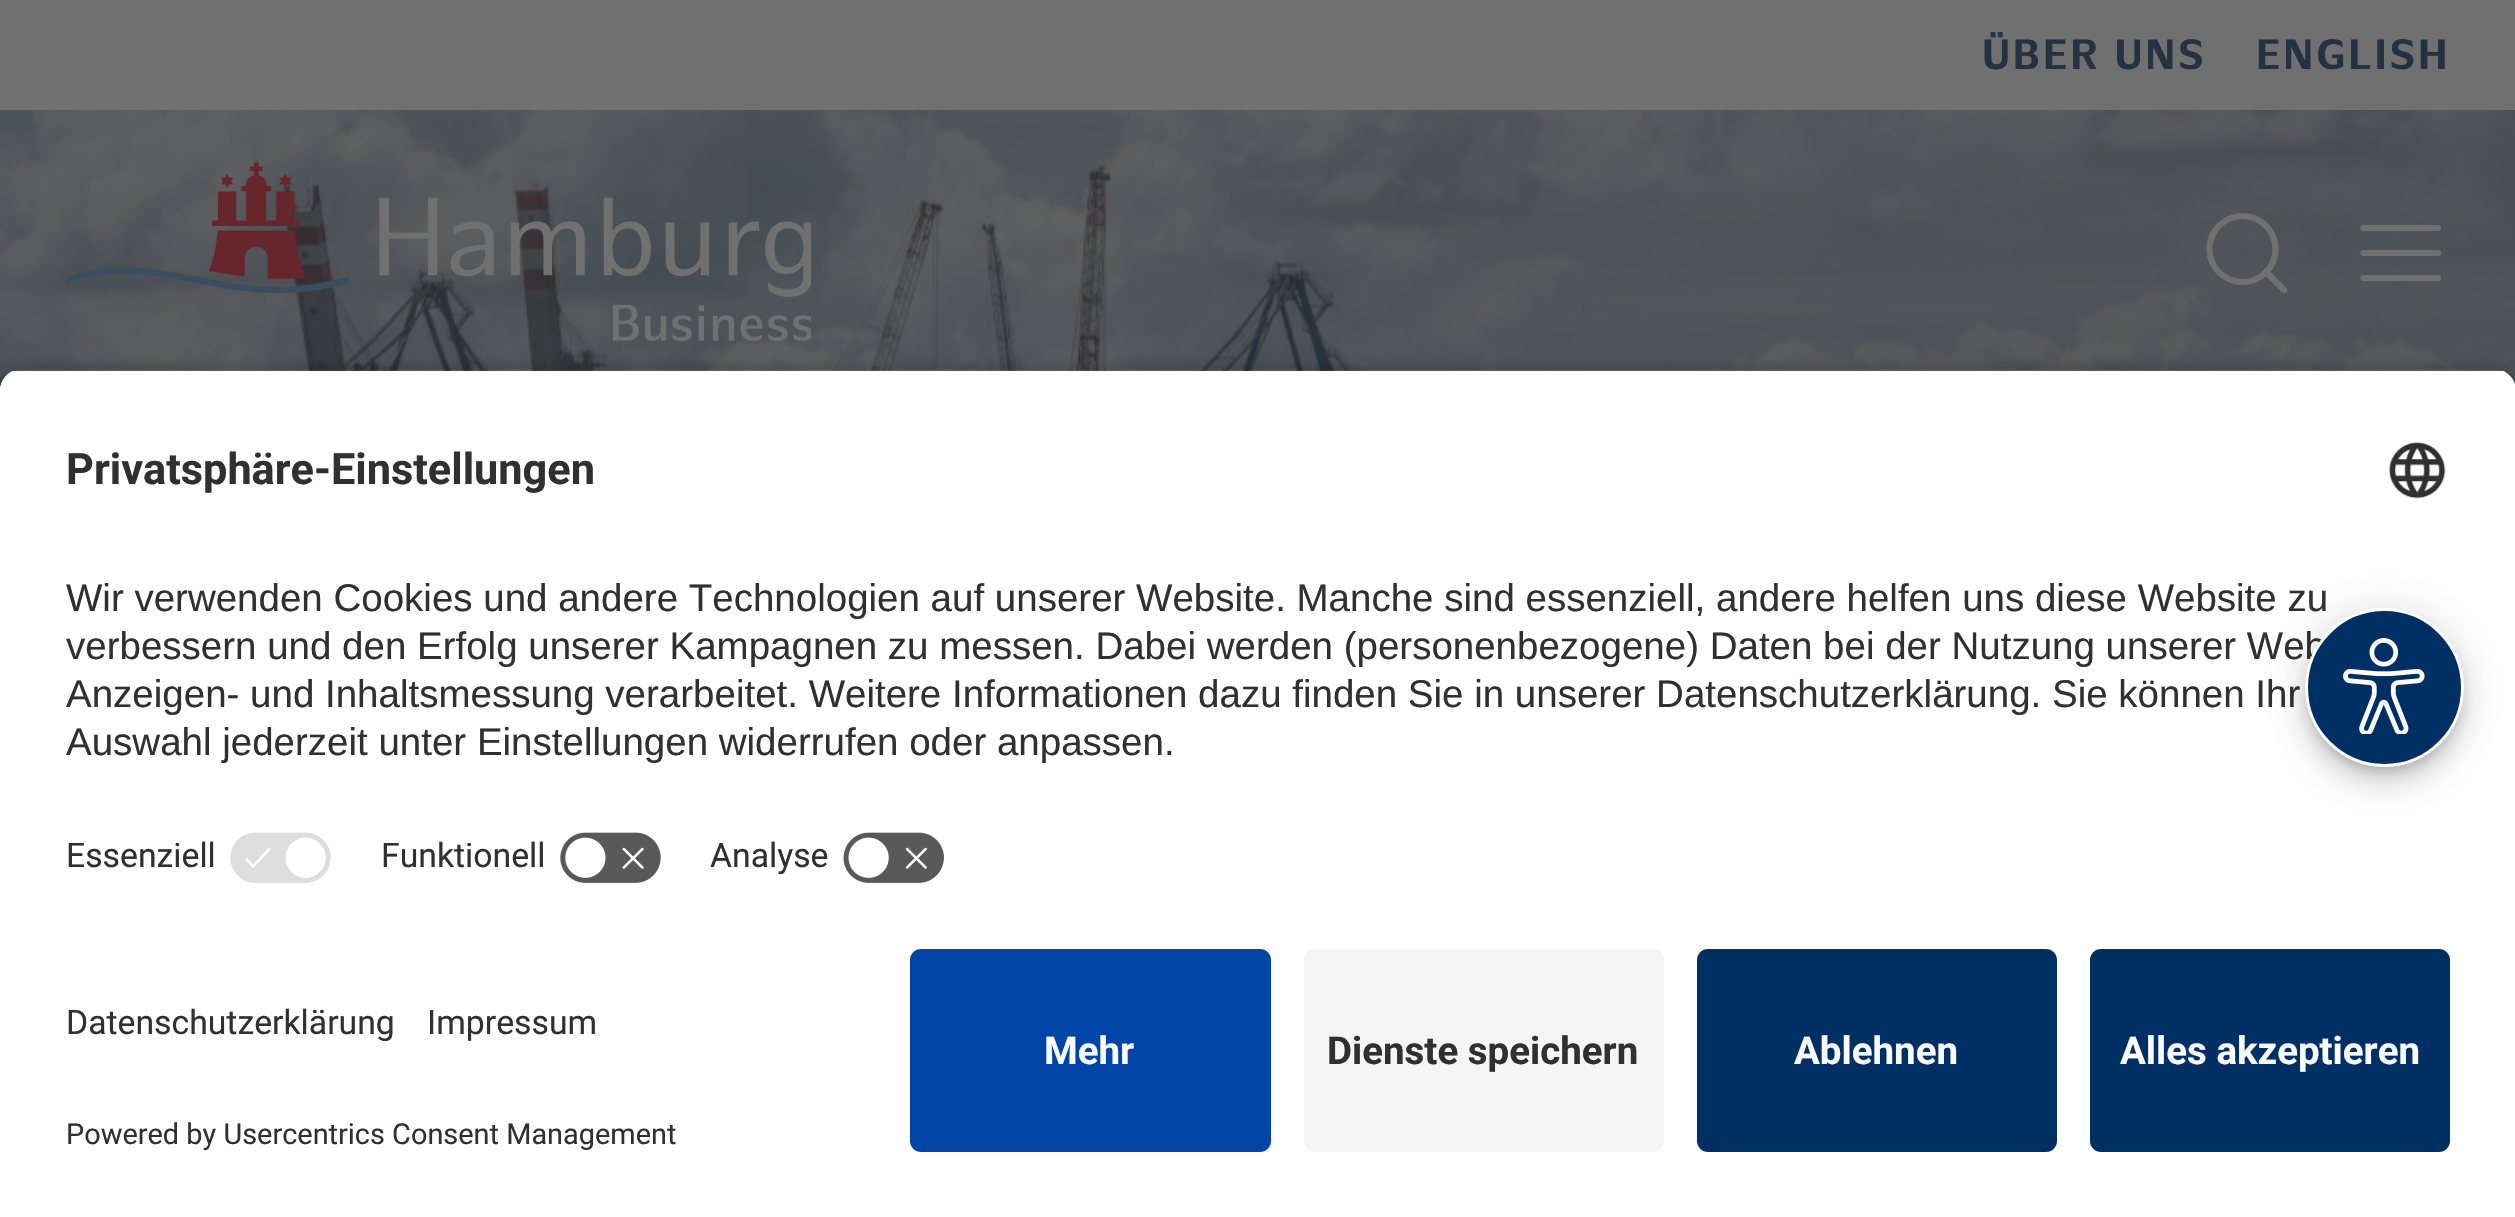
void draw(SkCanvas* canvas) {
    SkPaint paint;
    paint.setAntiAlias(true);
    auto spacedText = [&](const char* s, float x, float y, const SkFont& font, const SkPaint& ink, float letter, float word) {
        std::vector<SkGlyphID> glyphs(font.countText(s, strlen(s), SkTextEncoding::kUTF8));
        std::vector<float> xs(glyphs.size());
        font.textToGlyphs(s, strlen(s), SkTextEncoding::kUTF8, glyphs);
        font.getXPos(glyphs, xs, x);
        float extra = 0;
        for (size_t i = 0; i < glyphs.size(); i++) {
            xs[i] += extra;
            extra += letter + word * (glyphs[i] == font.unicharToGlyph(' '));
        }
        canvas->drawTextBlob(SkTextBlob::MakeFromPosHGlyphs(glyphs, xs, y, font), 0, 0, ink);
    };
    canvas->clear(0xFF707070);
    SkFont font1(fontMgr->matchFamilyStyle("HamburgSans", SkFontStyle::Bold()), 41.25f);
    font1.setSubpixel(true);
    paint.setColor(0xFF243241);
    spacedText("ÜBER UNS", 1982, 69, font1, paint, 2.75f, 0);
    spacedText("ENGLISH", 2256, 69, font1, paint, 2.75f, 0);
    canvas->drawImageRect(SkImages::DeferredFromEncodedData(SkData::MakeFromFileName("img1.png")), SkRect::MakeXYWH(0, 110, 2515, 281), SkSamplingOptions());
    canvas->drawImageRect(SkImages::DeferredFromEncodedData(SkData::MakeFromFileName("img2.png")), SkRect::MakeXYWH(66, 162, 745, 179), SkSamplingOptions());
    paint.setStyle(SkPaint::kStroke_Style);
    paint.setStrokeWidth(6.2f);
    paint.setColor(0xFF707070);
    canvas->drawCircle(2242.5f, 249, 33, paint);
    paint.setStrokeCap(SkPaint::kRound_Cap);
    paint.setStrokeJoin(SkPaint::kRound_Join);
    canvas->drawPath(SkPathBuilder().moveTo(2284, 290).lineTo(2266, 272).detach(), paint);
    canvas->drawPath(SkPathBuilder().moveTo(2363.5f, 253).lineTo(2438, 253).detach(), paint);
    canvas->drawPath(SkPathBuilder().moveTo(2363.5f, 228).lineTo(2438, 228).detach(), paint);
    canvas->drawPath(SkPathBuilder().moveTo(2363.5f, 278).lineTo(2438, 278).detach(), paint);
    canvas->save();
    canvas->clipPath(SkPathBuilder(SkPathFillType::kEvenOdd).moveTo(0, 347).lineTo(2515, 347).lineTo(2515, 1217).lineTo(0, 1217).close().moveTo(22, 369).lineTo(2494, 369).cubicTo(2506, 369, 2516, 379, 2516, 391).lineTo(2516, 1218).lineTo(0, 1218).lineTo(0, 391).cubicTo(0, 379, 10, 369, 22, 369).close().detach(), true);
    paint.setStyle(SkPaint::kFill_Style);
    paint.setColor(0xCC000000);
    paint.setMaskFilter(SkMaskFilter::MakeBlur(kNormal_SkBlurStyle, 9.5f));
    canvas->drawRoundRect(SkRect::MakeXYWH(0, 377, 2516, 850), 22, 22, paint);
    paint.setMaskFilter(nullptr);
    canvas->restore();
    canvas->save();
    canvas->clipPath(SkPathBuilder().moveTo(22, 369).lineTo(2494, 369).cubicTo(2506, 369, 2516, 379, 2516, 391).lineTo(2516, 927).lineTo(0, 927).lineTo(0, 391).cubicTo(0, 379, 10, 369, 22, 369).close().detach(), true);
    paint.setColor(0xFFFFFFFF);
    canvas->drawRect(SkRect::MakeXYWH(0, 371, 2515, 556), paint);
    canvas->drawRect(SkRect::MakeXYWH(0, 371, 2515, 446), paint);
    canvas->restore();
    SkFont font2(fontMgr->matchFamilyStyle("Roboto", SkFontStyle::Bold()), 43.25f);
    font2.setSubpixel(true);
    paint.setColor(0xFF303030);
    canvas->drawString("Privatsphäre-Einstellungen", 66, 484, font2, paint);
    canvas->drawImageRect(SkImages::DeferredFromEncodedData(SkData::MakeFromFileName("img3.png")), SkRect::MakeXYWH(2389, 442, 57, 57), SkSamplingOptions());
    SkFont font3(fontMgr->matchFamilyStyle("Liberation Sans", SkFontStyle::Normal()), 38.5f);
    font3.setSubpixel(true);
    canvas->drawString("Wir verwenden Cookies und andere Technologien auf unserer Website. Manche sind essenziell, andere helfen uns diese Website zu", 66, 611, font3, paint);
    canvas->drawString("verbessern und den Erfolg unserer Kampagnen zu messen. Dabei werden (personenbezogene) Daten bei der Nutzung unserer Web", 66, 659, font3, paint);
    canvas->drawString("Anzeigen- und Inhaltsmessung verarbeitet. Weitere Informationen dazu finden Sie in unserer Datenschutzerklärung. Sie können Ihr", 66, 707, font3, paint);
    canvas->drawString("Auswahl jederzeit unter Einstellungen widerrufen oder anpassen.", 66, 755, font3, paint);
    SkFont font4(fontMgr->matchFamilyStyle("Roboto", SkFontStyle::Normal()), 33.75f);
    font4.setSubpixel(true);
    canvas->drawString("Essenziell", 66, 867, font4, paint);
    canvas->drawImageRect(SkImages::DeferredFromEncodedData(SkData::MakeFromFileName("img4.png")), SkRect::MakeXYWH(230, 832, 101, 51), SkSamplingOptions());
    canvas->drawString("Funktionell", 381, 867, font4, paint);
    canvas->drawImageRect(SkImages::DeferredFromEncodedData(SkData::MakeFromFileName("img5.png")), SkRect::MakeXYWH(560, 832, 101, 51), SkSamplingOptions());
    canvas->drawString("Analyse", 710, 867, font4, paint);
    canvas->drawImageRect(SkImages::DeferredFromEncodedData(SkData::MakeFromFileName("img6.png")), SkRect::MakeXYWH(843, 832, 101, 51), SkSamplingOptions());
    paint.setColor(0xFFFFFFFF);
    canvas->drawRect(SkRect::MakeXYWH(0, 927, 2515, 290), paint);
    paint.setColor(0xFF303030);
    canvas->drawString("Datenschutzerklärung", 66, 1034, font4, paint);
    canvas->drawString("Impressum", 427, 1034, font4, paint);
    SkFont font5(fontMgr->matchFamilyStyle("Roboto", SkFontStyle::Normal()), 28.9f);
    font5.setSubpixel(true);
    canvas->drawString("Powered by Usercentrics Consent Management", 66, 1144, font5, paint);
    paint.setColor(0xFF0045A5);
    canvas->drawRoundRect(SkRect::MakeXYWH(910, 949, 361, 203), 11, 11, paint);
    SkFont font6(fontMgr->matchFamilyStyle("Roboto", SkFontStyle::Bold()), 38.5f);
    font6.setSubpixel(true);
    paint.setColor(0xFFFAFAFA);
    canvas->drawString("Mehr", 1044, 1064, font6, paint);
    paint.setColor(0xFFF5F5F5);
    canvas->drawRoundRect(SkRect::MakeXYWH(1304, 949, 360, 203), 11, 11, paint);
    paint.setColor(0xFF303030);
    canvas->drawString("Dienste speichern", 1327, 1064, font6, paint);
    paint.setColor(0xFF003063);
    canvas->drawRoundRect(SkRect::MakeXYWH(1697, 949, 360, 203), 11, 11, paint);
    paint.setColor(0xFFFAFAFA);
    canvas->drawString("Ablehnen", 1794, 1064, font6, paint);
    paint.setColor(0xFF003063);
    canvas->drawRoundRect(SkRect::MakeXYWH(2090, 949, 360, 203), 11, 11, paint);
    paint.setColor(0xFFFAFAFA);
    canvas->drawString("Alles akzeptieren", 2120, 1064, font6, paint);
    paint.setColor(0x1F000000);
    paint.setMaskFilter(SkMaskFilter::MakeBlur(kNormal_SkBlurStyle, 25));
    canvas->drawRoundRect(SkRect::MakeXYWH(2307, 613, 154, 154), 77, 77, paint);
    paint.setMaskFilter(nullptr);
    paint.setColor(0x24000000);
    paint.setMaskFilter(SkMaskFilter::MakeBlur(kNormal_SkBlurStyle, 14));
    canvas->drawRoundRect(SkRect::MakeXYWH(2307, 627, 154, 154), 77, 77, paint);
    paint.setMaskFilter(nullptr);
    paint.setColor(0x33000000);
    paint.setMaskFilter(SkMaskFilter::MakeBlur(kNormal_SkBlurStyle, 7));
    canvas->drawRoundRect(SkRect::MakeXYWH(2310, 622, 149, 148), 74, 74, paint);
    paint.setMaskFilter(nullptr);
    paint.setColor(0xFF003063);
    canvas->drawCircle(2384.5f, 687.5f, 78, paint);
    paint.setStyle(SkPaint::kStroke_Style);
    paint.setStrokeWidth(3);
    paint.setStrokeCap(SkPaint::kButt_Cap);
    paint.setStrokeJoin(SkPaint::kMiter_Join);
    paint.setColor(0xFFFFFFFF);
    canvas->drawCircle(2384.5f, 687.5f, 78, paint);
    canvas->drawImageRect(SkImages::DeferredFromEncodedData(SkData::MakeFromFileName("img7.png")), SkRect::MakeXYWH(2343, 638, 82, 96), SkSamplingOptions());
}
